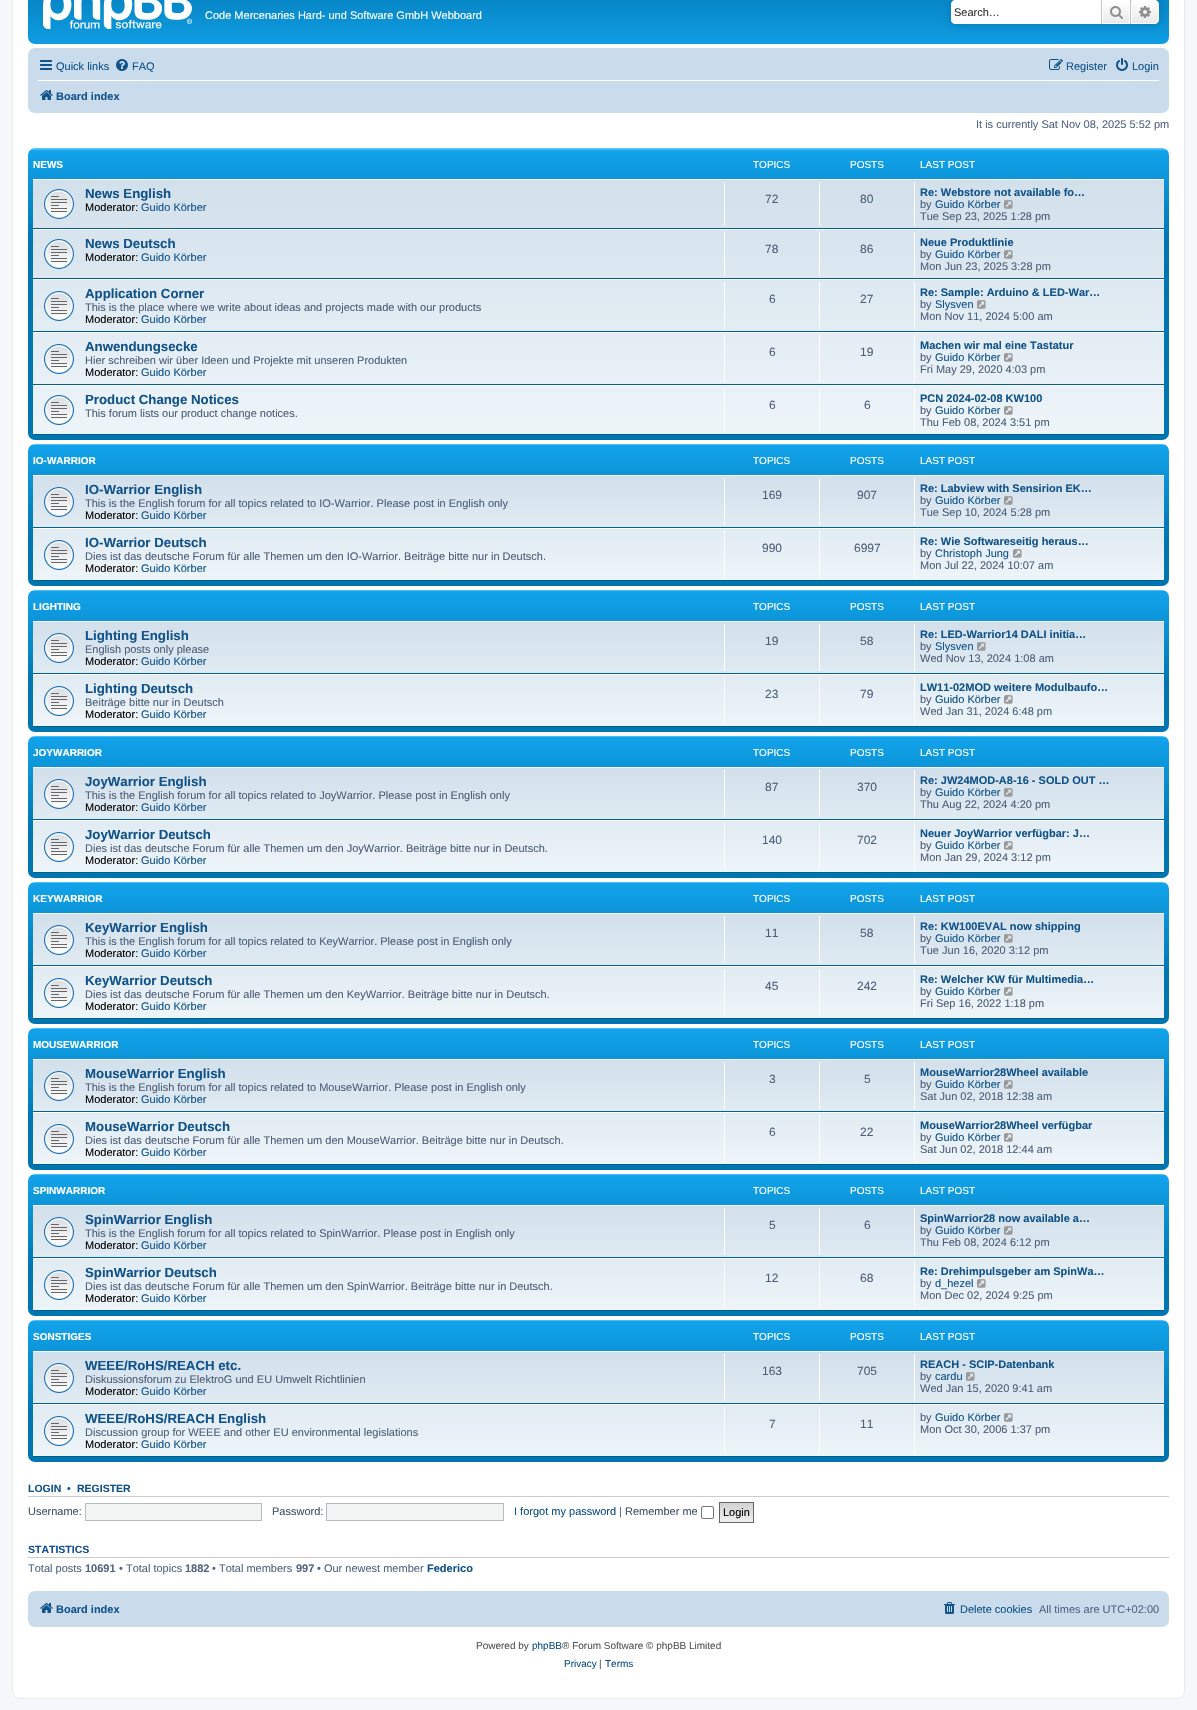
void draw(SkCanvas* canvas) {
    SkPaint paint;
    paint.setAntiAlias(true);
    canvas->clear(0xFFF5F7FA);
    paint.setColor(0xFFFFFFFF);
    canvas->drawRoundRect(SkRect::MakeXYWH(12.5f, -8.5f, 1172, 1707), 7.5f, 7.5f, paint);
    paint.setStyle(SkPaint::kStroke_Style);
    paint.setStrokeWidth(1);
    paint.setColor(0xFFE6E9ED);
    canvas->drawRoundRect(SkRect::MakeXYWH(12.5f, -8.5f, 1172, 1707), 7.5f, 7.5f, paint);
    paint.setStyle(SkPaint::kFill_Style);
    {
        const SkColor colors[] = {0xFF6ACEFF, 0xFF0076B1, 0xFF12A3EB};
        const float stops[] = {0, 0.02f, 1};
        const SkPoint ends[] = {{599, -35}, {599, 57}};
        paint.setShader(SkGradientShader::MakeLinear(ends, colors, stops, 3, SkTileMode::kClamp));
        paint.setAlpha(255);
    }
    canvas->drawRoundRect(SkRect::MakeXYWH(28, -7, 1141, 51), 7, 7, paint);
    canvas->drawImageRect(SkImages::DeferredFromEncodedData(SkData::MakeFromFileName("img1.png")), SkRect::MakeXYWH(43, 0, 149, 29), SkSamplingOptions());
    SkFont font1(fontMgr->matchFamilyStyle("Liberation Sans", SkFontStyle::Normal()), 11);
    font1.setSubpixel(true);
    paint.setShader(nullptr);
    paint.setColor(0xFFFFFFFF);
    canvas->drawString("Code Mercenaries Hard- und Software GmbH Webboard", 205, 19, font1, paint);
    paint.setColor(0xFF0075B0);
    paint.setMaskFilter(SkMaskFilter::MakeBlur(kNormal_SkBlurStyle, 5));
    canvas->drawRoundRect(SkRect::MakeXYWH(951, 0, 208, 24), 4, 4, paint);
    paint.setMaskFilter(nullptr);
    paint.setColor(0xFFFFFFFF);
    canvas->drawPath(SkPathBuilder().moveTo(955, 0).lineTo(1101, 0).lineTo(1101, 24).lineTo(955, 24).cubicTo(953, 24, 951, 22, 951, 20).lineTo(951, 4).cubicTo(951, 2, 953, 0, 955, 0).close().detach(), paint);
    paint.setColor(0xFF333333);
    canvas->drawString("Search…", 954, 16, font1, paint);
    {
        const SkColor colors[] = {0xFFFFFFFF, 0xFFE9E9E9};
        const float stops[] = {0, 1};
        const SkPoint ends[] = {{1116, 0}, {1116, 24}};
        paint.setShader(SkGradientShader::MakeLinear(ends, colors, stops, 2, SkTileMode::kClamp));
        paint.setAlpha(255);
    }
    canvas->drawRect(SkRect::MakeXYWH(1103, 1, 26, 22), paint);
    paint.setStyle(SkPaint::kStroke_Style);
    paint.setShader(nullptr);
    paint.setColor(0xFFFFFFFF);
    canvas->drawRect(SkRect::MakeXYWH(1102.5f, 0.5f, 27, 23), paint);
    paint.setStyle(SkPaint::kFill_Style);
    paint.setColor(0xFFC7C3BF);
    canvas->drawRect(SkRect::MakeXYWH(1130, 0, 1, 24), paint);
    canvas->drawRect(SkRect::MakeXYWH(1101, 0, 1, 24), paint);
    canvas->drawImageRect(SkImages::DeferredFromEncodedData(SkData::MakeFromFileName("img2.png")), SkRect::MakeXYWH(1110, 6, 13, 13), SkSamplingOptions());
    {
        const SkColor colors[] = {0xFFFFFFFF, 0xFFE9E9E9};
        const float stops[] = {0, 1};
        const SkPoint ends[] = {{1145, 0}, {1145, 24}};
        paint.setShader(SkGradientShader::MakeLinear(ends, colors, stops, 2, SkTileMode::kClamp));
        paint.setAlpha(255);
    }
    canvas->drawPath(SkPathBuilder().moveTo(1131.5f, 0.5f).lineTo(1155, 0.5f).cubicTo(1157, 0.5f, 1158.5f, 2, 1158.5f, 4).lineTo(1158.5f, 20).cubicTo(1158.5f, 22, 1157, 23.5f, 1155, 23.5f).lineTo(1131.5f, 23.5f).close().detach(), paint);
    paint.setStyle(SkPaint::kStroke_Style);
    paint.setShader(nullptr);
    paint.setColor(0xFFFFFFFF);
    canvas->drawPath(SkPathBuilder().moveTo(1131.5f, 0.5f).lineTo(1155, 0.5f).cubicTo(1157, 0.5f, 1158.5f, 2, 1158.5f, 4).lineTo(1158.5f, 20).cubicTo(1158.5f, 22, 1157, 23.5f, 1155, 23.5f).lineTo(1131.5f, 23.5f).close().detach(), paint);
    canvas->drawImageRect(SkImages::DeferredFromEncodedData(SkData::MakeFromFileName("img3.png")), SkRect::MakeXYWH(1139, 6, 12, 12), SkSamplingOptions());
    paint.setStyle(SkPaint::kFill_Style);
    paint.setColor(0xFFCADCEB);
    canvas->drawRoundRect(SkRect::MakeXYWH(28, 48, 1141, 65), 7, 7, paint);
    canvas->drawImageRect(SkImages::DeferredFromEncodedData(SkData::MakeFromFileName("img4.png")), SkRect::MakeXYWH(40, 60, 12, 10), SkSamplingOptions());
    paint.setColor(0xFF105289);
    canvas->drawString("Quick links", 56, 70, font1, paint);
    canvas->drawImageRect(SkImages::DeferredFromEncodedData(SkData::MakeFromFileName("img5.png")), SkRect::MakeXYWH(116, 59, 12, 12), SkSamplingOptions());
    canvas->drawString("FAQ", 132, 70, font1, paint);
    canvas->drawImageRect(SkImages::DeferredFromEncodedData(SkData::MakeFromFileName("img6.png")), SkRect::MakeXYWH(1049, 59, 14, 11), SkSamplingOptions());
    canvas->drawString("Register", 1066, 70, font1, paint);
    canvas->drawImageRect(SkImages::DeferredFromEncodedData(SkData::MakeFromFileName("img7.png")), SkRect::MakeXYWH(1116, 58, 12, 13), SkSamplingOptions());
    canvas->drawString("Login", 1132, 70, font1, paint);
    paint.setColor(0xFFFFFFFF);
    canvas->drawRect(SkRect::MakeXYWH(38, 80, 1121, 1), paint);
    canvas->drawImageRect(SkImages::DeferredFromEncodedData(SkData::MakeFromFileName("img8.png")), SkRect::MakeXYWH(40, 90, 13, 10), SkSamplingOptions());
    SkFont font2(fontMgr->matchFamilyStyle("Liberation Sans", SkFontStyle::Bold()), 11);
    font2.setSubpixel(true);
    paint.setColor(0xFF105289);
    canvas->drawString("Board index", 56, 100, font2, paint);
    paint.setColor(0xFF536482);
    canvas->drawString("It is currently Sat Nov 08, 2025 5:52 pm", 976, 128, font1, paint);
    {
        const SkColor colors[] = {0xFF6ACEFF, 0xFF12A3EB, 0xFF0076B1, 0xFF0076B1};
        const float stops[] = {0, 0.01f, 0.32f, 1};
        const SkPoint ends[] = {{599, 148}, {599, 440}};
        paint.setShader(SkGradientShader::MakeLinear(ends, colors, stops, 4, SkTileMode::kClamp));
        paint.setAlpha(255);
    }
    canvas->drawRoundRect(SkRect::MakeXYWH(28, 148, 1141, 292), 7, 7, paint);
    SkFont font3(fontMgr->matchFamilyStyle("Liberation Sans", SkFontStyle::Bold()), 10);
    font3.setSubpixel(true);
    paint.setShader(nullptr);
    paint.setColor(0xFFFFFFFF);
    canvas->drawString("NEWS", 33, 168, font3, paint);
    SkFont font4(fontMgr->matchFamilyStyle("Liberation Sans", SkFontStyle::Normal()), 10);
    font4.setSubpixel(true);
    canvas->drawString("TOPICS", 753, 168, font4, paint);
    canvas->drawString("POSTS", 850, 168, font4, paint);
    canvas->drawString("LAST POST", 920, 168, font4, paint);
    {
        const SkColor colors[] = {0xFFD2E0EB, 0xFFEEF5F9};
        const float stops[] = {0, 1};
        const SkPoint ends[] = {{599, 179}, {599, 435}};
        paint.setShader(SkGradientShader::MakeLinear(ends, colors, stops, 2, SkTileMode::kClamp));
        paint.setAlpha(255);
    }
    canvas->drawRect(SkRect::MakeXYWH(33, 180, 1131, 254), paint);
    paint.setShader(nullptr);
    paint.setColor(0xFFFFFFFF);
    canvas->drawRect(SkRect::MakeXYWH(33, 179, 1131, 1), paint);
    paint.setColor(0xFF00608F);
    canvas->drawRect(SkRect::MakeXYWH(33, 228, 1131, 1), paint);
    canvas->drawImageRect(SkImages::DeferredFromEncodedData(SkData::MakeFromFileName("img9.png")), SkRect::MakeXYWH(44, 189, 30, 30), SkSamplingOptions());
    SkFont font5(fontMgr->matchFamilyStyle("Liberation Sans", SkFontStyle::Bold()), 13.25f);
    font5.setSubpixel(true);
    paint.setColor(0xFF105289);
    canvas->drawString("News English", 85, 198, font5, paint);
    paint.setColor(0xFF000000);
    canvas->drawString("Moderator:", 85, 211, font1, paint);
    paint.setColor(0xFF105289);
    canvas->drawString("Guido Körber", 141, 211, font1, paint);
    paint.setColor(0xFFFFFFFF);
    canvas->drawRect(SkRect::MakeXYWH(724, 182, 1, 44), paint);
    SkFont font6(fontMgr->matchFamilyStyle("Liberation Sans", SkFontStyle::Normal()), 12);
    font6.setSubpixel(true);
    paint.setColor(0xFF4C5D77);
    canvas->drawString("72", 765, 203, font6, paint);
    paint.setColor(0xFFFFFFFF);
    canvas->drawRect(SkRect::MakeXYWH(819, 182, 1, 44), paint);
    paint.setColor(0xFF4C5D77);
    canvas->drawString("80", 860, 203, font6, paint);
    paint.setColor(0xFFFFFFFF);
    canvas->drawRect(SkRect::MakeXYWH(914, 182, 1, 44), paint);
    paint.setColor(0xFF105289);
    canvas->drawString("Re: Webstore not available fo…", 920, 196, font2, paint);
    paint.setColor(0xFF4C5D77);
    canvas->drawString("by", 920, 208, font1, paint);
    paint.setColor(0xFF105289);
    canvas->drawString("Guido Körber", 935, 208, font1, paint);
    canvas->drawImageRect(SkImages::DeferredFromEncodedData(SkData::MakeFromFileName("img10.png")), SkRect::MakeXYWH(1004, 200, 9, 9), SkSamplingOptions());
    paint.setColor(0xFF4C5D77);
    canvas->drawString("Tue Sep 23, 2025 1:28 pm", 920, 220, font1, paint);
    paint.setColor(0xFFFFFFFF);
    canvas->drawRect(SkRect::MakeXYWH(33, 229, 1131, 1), paint);
    paint.setColor(0xFF00608F);
    canvas->drawRect(SkRect::MakeXYWH(33, 278, 1131, 1), paint);
    canvas->drawImageRect(SkImages::DeferredFromEncodedData(SkData::MakeFromFileName("img11.png")), SkRect::MakeXYWH(44, 239, 30, 30), SkSamplingOptions());
    paint.setColor(0xFF105289);
    canvas->drawString("News Deutsch", 85, 248, font5, paint);
    paint.setColor(0xFF000000);
    canvas->drawString("Moderator:", 85, 261, font1, paint);
    paint.setColor(0xFF105289);
    canvas->drawString("Guido Körber", 141, 261, font1, paint);
    paint.setColor(0xFFFFFFFF);
    canvas->drawRect(SkRect::MakeXYWH(724, 232, 1, 44), paint);
    paint.setColor(0xFF4C5D77);
    canvas->drawString("78", 765, 253, font6, paint);
    paint.setColor(0xFFFFFFFF);
    canvas->drawRect(SkRect::MakeXYWH(819, 232, 1, 44), paint);
    paint.setColor(0xFF4C5D77);
    canvas->drawString("86", 860, 253, font6, paint);
    paint.setColor(0xFFFFFFFF);
    canvas->drawRect(SkRect::MakeXYWH(914, 232, 1, 44), paint);
    paint.setColor(0xFF105289);
    canvas->drawString("Neue Produktlinie", 920, 246, font2, paint);
    paint.setColor(0xFF4C5D77);
    canvas->drawString("by", 920, 258, font1, paint);
    paint.setColor(0xFF105289);
    canvas->drawString("Guido Körber", 935, 258, font1, paint);
    canvas->drawImageRect(SkImages::DeferredFromEncodedData(SkData::MakeFromFileName("img12.png")), SkRect::MakeXYWH(1004, 250, 9, 9), SkSamplingOptions());
    paint.setColor(0xFF4C5D77);
    canvas->drawString("Mon Jun 23, 2025 3:28 pm", 920, 270, font1, paint);
    paint.setColor(0xFFFFFFFF);
    canvas->drawRect(SkRect::MakeXYWH(33, 279, 1131, 1), paint);
    paint.setColor(0xFF00608F);
    canvas->drawRect(SkRect::MakeXYWH(33, 331, 1131, 1), paint);
    canvas->drawImageRect(SkImages::DeferredFromEncodedData(SkData::MakeFromFileName("img13.png")), SkRect::MakeXYWH(44, 291, 30, 30), SkSamplingOptions());
    paint.setColor(0xFF105289);
    canvas->drawString("Application Corner", 85, 298, font5, paint);
    paint.setColor(0xFF4C5D77);
    canvas->drawString("This is the place where we write about ideas and projects made with our products", 85, 311, font1, paint);
    paint.setColor(0xFF000000);
    canvas->drawString("Moderator:", 85, 323, font1, paint);
    paint.setColor(0xFF105289);
    canvas->drawString("Guido Körber", 141, 323, font1, paint);
    paint.setColor(0xFFFFFFFF);
    canvas->drawRect(SkRect::MakeXYWH(724, 282, 1, 47), paint);
    paint.setColor(0xFF4C5D77);
    canvas->drawString("6", 769, 303, font6, paint);
    paint.setColor(0xFFFFFFFF);
    canvas->drawRect(SkRect::MakeXYWH(819, 282, 1, 47), paint);
    paint.setColor(0xFF4C5D77);
    canvas->drawString("27", 860, 303, font6, paint);
    paint.setColor(0xFFFFFFFF);
    canvas->drawRect(SkRect::MakeXYWH(914, 282, 1, 47), paint);
    paint.setColor(0xFF105289);
    canvas->drawString("Re: Sample: Arduino & LED-War…", 920, 296, font2, paint);
    paint.setColor(0xFF4C5D77);
    canvas->drawString("by", 920, 308, font1, paint);
    paint.setColor(0xFF105289);
    canvas->drawString("Slysven", 935, 308, font1, paint);
    canvas->drawImageRect(SkImages::DeferredFromEncodedData(SkData::MakeFromFileName("img14.png")), SkRect::MakeXYWH(977, 300, 9, 9), SkSamplingOptions());
    paint.setColor(0xFF4C5D77);
    canvas->drawString("Mon Nov 11, 2024 5:00 am", 920, 320, font1, paint);
    paint.setColor(0xFFFFFFFF);
    canvas->drawRect(SkRect::MakeXYWH(33, 332, 1131, 1), paint);
    paint.setColor(0xFF00608F);
    canvas->drawRect(SkRect::MakeXYWH(33, 384, 1131, 1), paint);
    canvas->drawImageRect(SkImages::DeferredFromEncodedData(SkData::MakeFromFileName("img15.png")), SkRect::MakeXYWH(44, 344, 30, 30), SkSamplingOptions());
    paint.setColor(0xFF105289);
    canvas->drawString("Anwendungsecke", 85, 351, font5, paint);
    paint.setColor(0xFF4C5D77);
    canvas->drawString("Hier schreiben wir über Ideen und Projekte mit unseren Produkten", 85, 364, font1, paint);
    paint.setColor(0xFF000000);
    canvas->drawString("Moderator:", 85, 376, font1, paint);
    paint.setColor(0xFF105289);
    canvas->drawString("Guido Körber", 141, 376, font1, paint);
    paint.setColor(0xFFFFFFFF);
    canvas->drawRect(SkRect::MakeXYWH(724, 335, 1, 47), paint);
    paint.setColor(0xFF4C5D77);
    canvas->drawString("6", 769, 356, font6, paint);
    paint.setColor(0xFFFFFFFF);
    canvas->drawRect(SkRect::MakeXYWH(819, 335, 1, 47), paint);
    paint.setColor(0xFF4C5D77);
    canvas->drawString("19", 860, 356, font6, paint);
    paint.setColor(0xFFFFFFFF);
    canvas->drawRect(SkRect::MakeXYWH(914, 335, 1, 47), paint);
    paint.setColor(0xFF105289);
    canvas->drawString("Machen wir mal eine Tastatur", 920, 349, font2, paint);
    paint.setColor(0xFF4C5D77);
    canvas->drawString("by", 920, 361, font1, paint);
    paint.setColor(0xFF105289);
    canvas->drawString("Guido Körber", 935, 361, font1, paint);
    canvas->drawImageRect(SkImages::DeferredFromEncodedData(SkData::MakeFromFileName("img16.png")), SkRect::MakeXYWH(1004, 353, 9, 9), SkSamplingOptions());
    paint.setColor(0xFF4C5D77);
    canvas->drawString("Fri May 29, 2020 4:03 pm", 920, 373, font1, paint);
    paint.setColor(0xFFFFFFFF);
    canvas->drawRect(SkRect::MakeXYWH(33, 385, 1131, 1), paint);
    paint.setColor(0xFF00608F);
    canvas->drawRect(SkRect::MakeXYWH(33, 434, 1131, 1), paint);
    canvas->drawImageRect(SkImages::DeferredFromEncodedData(SkData::MakeFromFileName("img17.png")), SkRect::MakeXYWH(44, 395, 30, 30), SkSamplingOptions());
    paint.setColor(0xFF105289);
    canvas->drawString("Product Change Notices", 85, 404, font5, paint);
    paint.setColor(0xFF4C5D77);
    canvas->drawString("This forum lists our product change notices.", 85, 417, font1, paint);
    paint.setColor(0xFFFFFFFF);
    canvas->drawRect(SkRect::MakeXYWH(724, 388, 1, 44), paint);
    paint.setColor(0xFF4C5D77);
    canvas->drawString("6", 769, 409, font6, paint);
    paint.setColor(0xFFFFFFFF);
    canvas->drawRect(SkRect::MakeXYWH(819, 388, 1, 44), paint);
    paint.setColor(0xFF4C5D77);
    canvas->drawString("6", 864, 409, font6, paint);
    paint.setColor(0xFFFFFFFF);
    canvas->drawRect(SkRect::MakeXYWH(914, 388, 1, 44), paint);
    paint.setColor(0xFF105289);
    canvas->drawString("PCN 2024-02-08 KW100", 920, 402, font2, paint);
    paint.setColor(0xFF4C5D77);
    canvas->drawString("by", 920, 414, font1, paint);
    paint.setColor(0xFF105289);
    canvas->drawString("Guido Körber", 935, 414, font1, paint);
    canvas->drawImageRect(SkImages::DeferredFromEncodedData(SkData::MakeFromFileName("img18.png")), SkRect::MakeXYWH(1004, 406, 9, 9), SkSamplingOptions());
    paint.setColor(0xFF4C5D77);
    canvas->drawString("Thu Feb 08, 2024 3:51 pm", 920, 426, font1, paint);
    {
        const SkColor colors[] = {0xFF6ACEFF, 0xFF12A3EB, 0xFF0076B1, 0xFF0076B1};
        const float stops[] = {0, 0.01f, 0.65f, 1};
        const SkPoint ends[] = {{599, 444}, {599, 586}};
        paint.setShader(SkGradientShader::MakeLinear(ends, colors, stops, 4, SkTileMode::kClamp));
        paint.setAlpha(255);
    }
    canvas->drawRoundRect(SkRect::MakeXYWH(28, 444, 1141, 142), 7, 7, paint);
    paint.setShader(nullptr);
    paint.setColor(0xFFFFFFFF);
    canvas->drawString("IO-WARRIOR", 33, 464, font3, paint);
    canvas->drawString("TOPICS", 753, 464, font4, paint);
    canvas->drawString("POSTS", 850, 464, font4, paint);
    canvas->drawString("LAST POST", 920, 464, font4, paint);
    {
        const SkColor colors[] = {0xFFD2E0EB, 0xFFEEF5F9};
        const float stops[] = {0, 1};
        const SkPoint ends[] = {{599, 475}, {599, 581}};
        paint.setShader(SkGradientShader::MakeLinear(ends, colors, stops, 2, SkTileMode::kClamp));
        paint.setAlpha(255);
    }
    canvas->drawRect(SkRect::MakeXYWH(33, 476, 1131, 104), paint);
    paint.setShader(nullptr);
    paint.setColor(0xFFFFFFFF);
    canvas->drawRect(SkRect::MakeXYWH(33, 475, 1131, 1), paint);
    paint.setColor(0xFF00608F);
    canvas->drawRect(SkRect::MakeXYWH(33, 527, 1131, 1), paint);
    canvas->drawImageRect(SkImages::DeferredFromEncodedData(SkData::MakeFromFileName("img19.png")), SkRect::MakeXYWH(44, 487, 30, 30), SkSamplingOptions());
    paint.setColor(0xFF105289);
    canvas->drawString("IO-Warrior English", 85, 494, font5, paint);
    paint.setColor(0xFF4C5D77);
    canvas->drawString("This is the English forum for all topics related to IO-Warrior. Please post in English only", 85, 507, font1, paint);
    paint.setColor(0xFF000000);
    canvas->drawString("Moderator:", 85, 519, font1, paint);
    paint.setColor(0xFF105289);
    canvas->drawString("Guido Körber", 141, 519, font1, paint);
    paint.setColor(0xFFFFFFFF);
    canvas->drawRect(SkRect::MakeXYWH(724, 478, 1, 47), paint);
    paint.setColor(0xFF4C5D77);
    canvas->drawString("169", 762, 499, font6, paint);
    paint.setColor(0xFFFFFFFF);
    canvas->drawRect(SkRect::MakeXYWH(819, 478, 1, 47), paint);
    paint.setColor(0xFF4C5D77);
    canvas->drawString("907", 857, 499, font6, paint);
    paint.setColor(0xFFFFFFFF);
    canvas->drawRect(SkRect::MakeXYWH(914, 478, 1, 47), paint);
    paint.setColor(0xFF105289);
    canvas->drawString("Re: Labview with Sensirion EK…", 920, 492, font2, paint);
    paint.setColor(0xFF4C5D77);
    canvas->drawString("by", 920, 504, font1, paint);
    paint.setColor(0xFF105289);
    canvas->drawString("Guido Körber", 935, 504, font1, paint);
    canvas->drawImageRect(SkImages::DeferredFromEncodedData(SkData::MakeFromFileName("img20.png")), SkRect::MakeXYWH(1004, 496, 9, 9), SkSamplingOptions());
    paint.setColor(0xFF4C5D77);
    canvas->drawString("Tue Sep 10, 2024 5:28 pm", 920, 516, font1, paint);
    paint.setColor(0xFFFFFFFF);
    canvas->drawRect(SkRect::MakeXYWH(33, 528, 1131, 1), paint);
    paint.setColor(0xFF00608F);
    canvas->drawRect(SkRect::MakeXYWH(33, 580, 1131, 1), paint);
    canvas->drawImageRect(SkImages::DeferredFromEncodedData(SkData::MakeFromFileName("img21.png")), SkRect::MakeXYWH(44, 540, 30, 30), SkSamplingOptions());
    paint.setColor(0xFF105289);
    canvas->drawString("IO-Warrior Deutsch", 85, 547, font5, paint);
    paint.setColor(0xFF4C5D77);
    canvas->drawString("Dies ist das deutsche Forum für alle Themen um den IO-Warrior. Beiträge bitte nur in Deutsch.", 85, 560, font1, paint);
    paint.setColor(0xFF000000);
    canvas->drawString("Moderator:", 85, 572, font1, paint);
    paint.setColor(0xFF105289);
    canvas->drawString("Guido Körber", 141, 572, font1, paint);
    paint.setColor(0xFFFFFFFF);
    canvas->drawRect(SkRect::MakeXYWH(724, 531, 1, 47), paint);
    paint.setColor(0xFF4C5D77);
    canvas->drawString("990", 762, 552, font6, paint);
    paint.setColor(0xFFFFFFFF);
    canvas->drawRect(SkRect::MakeXYWH(819, 531, 1, 47), paint);
    paint.setColor(0xFF4C5D77);
    canvas->drawString("6997", 854, 552, font6, paint);
    paint.setColor(0xFFFFFFFF);
    canvas->drawRect(SkRect::MakeXYWH(914, 531, 1, 47), paint);
    paint.setColor(0xFF105289);
    canvas->drawString("Re: Wie Softwareseitig heraus…", 920, 545, font2, paint);
    paint.setColor(0xFF4C5D77);
    canvas->drawString("by", 920, 557, font1, paint);
    paint.setColor(0xFF105289);
    canvas->drawString("Christoph Jung", 935, 557, font1, paint);
    canvas->drawImageRect(SkImages::DeferredFromEncodedData(SkData::MakeFromFileName("img22.png")), SkRect::MakeXYWH(1013, 549, 9, 9), SkSamplingOptions());
    paint.setColor(0xFF4C5D77);
    canvas->drawString("Mon Jul 22, 2024 10:07 am", 920, 569, font1, paint);
    {
        const SkColor colors[] = {0xFF6ACEFF, 0xFF12A3EB, 0xFF0076B1, 0xFF0076B1};
        const float stops[] = {0, 0.01f, 0.65f, 1};
        const SkPoint ends[] = {{599, 590}, {599, 732}};
        paint.setShader(SkGradientShader::MakeLinear(ends, colors, stops, 4, SkTileMode::kClamp));
        paint.setAlpha(255);
    }
    canvas->drawRoundRect(SkRect::MakeXYWH(28, 590, 1141, 142), 7, 7, paint);
    paint.setShader(nullptr);
    paint.setColor(0xFFFFFFFF);
    canvas->drawString("LIGHTING", 33, 610, font3, paint);
    canvas->drawString("TOPICS", 753, 610, font4, paint);
    canvas->drawString("POSTS", 850, 610, font4, paint);
    canvas->drawString("LAST POST", 920, 610, font4, paint);
    {
        const SkColor colors[] = {0xFFD2E0EB, 0xFFEEF5F9};
        const float stops[] = {0, 1};
        const SkPoint ends[] = {{599, 621}, {599, 727}};
        paint.setShader(SkGradientShader::MakeLinear(ends, colors, stops, 2, SkTileMode::kClamp));
        paint.setAlpha(255);
    }
    canvas->drawRect(SkRect::MakeXYWH(33, 622, 1131, 104), paint);
    paint.setShader(nullptr);
    paint.setColor(0xFFFFFFFF);
    canvas->drawRect(SkRect::MakeXYWH(33, 621, 1131, 1), paint);
    paint.setColor(0xFF00608F);
    canvas->drawRect(SkRect::MakeXYWH(33, 673, 1131, 1), paint);
    canvas->drawImageRect(SkImages::DeferredFromEncodedData(SkData::MakeFromFileName("img19.png")), SkRect::MakeXYWH(44, 633, 30, 30), SkSamplingOptions());
    paint.setColor(0xFF105289);
    canvas->drawString("Lighting English", 85, 640, font5, paint);
    paint.setColor(0xFF4C5D77);
    canvas->drawString("English posts only please", 85, 653, font1, paint);
    paint.setColor(0xFF000000);
    canvas->drawString("Moderator:", 85, 665, font1, paint);
    paint.setColor(0xFF105289);
    canvas->drawString("Guido Körber", 141, 665, font1, paint);
    paint.setColor(0xFFFFFFFF);
    canvas->drawRect(SkRect::MakeXYWH(724, 624, 1, 47), paint);
    paint.setColor(0xFF4C5D77);
    canvas->drawString("19", 765, 645, font6, paint);
    paint.setColor(0xFFFFFFFF);
    canvas->drawRect(SkRect::MakeXYWH(819, 624, 1, 47), paint);
    paint.setColor(0xFF4C5D77);
    canvas->drawString("58", 860, 645, font6, paint);
    paint.setColor(0xFFFFFFFF);
    canvas->drawRect(SkRect::MakeXYWH(914, 624, 1, 47), paint);
    paint.setColor(0xFF105289);
    canvas->drawString("Re: LED-Warrior14 DALI initia…", 920, 638, font2, paint);
    paint.setColor(0xFF4C5D77);
    canvas->drawString("by", 920, 650, font1, paint);
    paint.setColor(0xFF105289);
    canvas->drawString("Slysven", 935, 650, font1, paint);
    canvas->drawImageRect(SkImages::DeferredFromEncodedData(SkData::MakeFromFileName("img20.png")), SkRect::MakeXYWH(977, 642, 9, 9), SkSamplingOptions());
    paint.setColor(0xFF4C5D77);
    canvas->drawString("Wed Nov 13, 2024 1:08 am", 920, 662, font1, paint);
    paint.setColor(0xFFFFFFFF);
    canvas->drawRect(SkRect::MakeXYWH(33, 674, 1131, 1), paint);
    paint.setColor(0xFF00608F);
    canvas->drawRect(SkRect::MakeXYWH(33, 726, 1131, 1), paint);
    canvas->drawImageRect(SkImages::DeferredFromEncodedData(SkData::MakeFromFileName("img21.png")), SkRect::MakeXYWH(44, 686, 30, 30), SkSamplingOptions());
    paint.setColor(0xFF105289);
    canvas->drawString("Lighting Deutsch", 85, 693, font5, paint);
    paint.setColor(0xFF4C5D77);
    canvas->drawString("Beiträge bitte nur in Deutsch", 85, 706, font1, paint);
    paint.setColor(0xFF000000);
    canvas->drawString("Moderator:", 85, 718, font1, paint);
    paint.setColor(0xFF105289);
    canvas->drawString("Guido Körber", 141, 718, font1, paint);
    paint.setColor(0xFFFFFFFF);
    canvas->drawRect(SkRect::MakeXYWH(724, 677, 1, 47), paint);
    paint.setColor(0xFF4C5D77);
    canvas->drawString("23", 765, 698, font6, paint);
    paint.setColor(0xFFFFFFFF);
    canvas->drawRect(SkRect::MakeXYWH(819, 677, 1, 47), paint);
    paint.setColor(0xFF4C5D77);
    canvas->drawString("79", 860, 698, font6, paint);
    paint.setColor(0xFFFFFFFF);
    canvas->drawRect(SkRect::MakeXYWH(914, 677, 1, 47), paint);
    paint.setColor(0xFF105289);
    canvas->drawString("LW11-02MOD weitere Modulbaufo…", 920, 691, font2, paint);
    paint.setColor(0xFF4C5D77);
    canvas->drawString("by", 920, 703, font1, paint);
    paint.setColor(0xFF105289);
    canvas->drawString("Guido Körber", 935, 703, font1, paint);
    canvas->drawImageRect(SkImages::DeferredFromEncodedData(SkData::MakeFromFileName("img22.png")), SkRect::MakeXYWH(1004, 695, 9, 9), SkSamplingOptions());
    paint.setColor(0xFF4C5D77);
    canvas->drawString("Wed Jan 31, 2024 6:48 pm", 920, 715, font1, paint);
    {
        const SkColor colors[] = {0xFF6ACEFF, 0xFF12A3EB, 0xFF0076B1, 0xFF0076B1};
        const float stops[] = {0, 0.01f, 0.65f, 1};
        const SkPoint ends[] = {{599, 736}, {599, 878}};
        paint.setShader(SkGradientShader::MakeLinear(ends, colors, stops, 4, SkTileMode::kClamp));
        paint.setAlpha(255);
    }
    canvas->drawRoundRect(SkRect::MakeXYWH(28, 736, 1141, 142), 7, 7, paint);
    paint.setShader(nullptr);
    paint.setColor(0xFFFFFFFF);
    canvas->drawString("JOYWARRIOR", 33, 756, font3, paint);
    canvas->drawString("TOPICS", 753, 756, font4, paint);
    canvas->drawString("POSTS", 850, 756, font4, paint);
    canvas->drawString("LAST POST", 920, 756, font4, paint);
    {
        const SkColor colors[] = {0xFFD2E0EB, 0xFFEEF5F9};
        const float stops[] = {0, 1};
        const SkPoint ends[] = {{599, 767}, {599, 873}};
        paint.setShader(SkGradientShader::MakeLinear(ends, colors, stops, 2, SkTileMode::kClamp));
        paint.setAlpha(255);
    }
    canvas->drawRect(SkRect::MakeXYWH(33, 768, 1131, 104), paint);
    paint.setShader(nullptr);
    paint.setColor(0xFFFFFFFF);
    canvas->drawRect(SkRect::MakeXYWH(33, 767, 1131, 1), paint);
    paint.setColor(0xFF00608F);
    canvas->drawRect(SkRect::MakeXYWH(33, 819, 1131, 1), paint);
    canvas->drawImageRect(SkImages::DeferredFromEncodedData(SkData::MakeFromFileName("img19.png")), SkRect::MakeXYWH(44, 779, 30, 30), SkSamplingOptions());
    paint.setColor(0xFF105289);
    canvas->drawString("JoyWarrior English", 85, 786, font5, paint);
    paint.setColor(0xFF4C5D77);
    canvas->drawString("This is the English forum for all topics related to JoyWarrior. Please post in English only", 85, 799, font1, paint);
    paint.setColor(0xFF000000);
    canvas->drawString("Moderator:", 85, 811, font1, paint);
    paint.setColor(0xFF105289);
    canvas->drawString("Guido Körber", 141, 811, font1, paint);
    paint.setColor(0xFFFFFFFF);
    canvas->drawRect(SkRect::MakeXYWH(724, 770, 1, 47), paint);
    paint.setColor(0xFF4C5D77);
    canvas->drawString("87", 765, 791, font6, paint);
    paint.setColor(0xFFFFFFFF);
    canvas->drawRect(SkRect::MakeXYWH(819, 770, 1, 47), paint);
    paint.setColor(0xFF4C5D77);
    canvas->drawString("370", 857, 791, font6, paint);
    paint.setColor(0xFFFFFFFF);
    canvas->drawRect(SkRect::MakeXYWH(914, 770, 1, 47), paint);
    paint.setColor(0xFF105289);
    canvas->drawString("Re: JW24MOD-A8-16 - SOLD OUT …", 920, 784, font2, paint);
    paint.setColor(0xFF4C5D77);
    canvas->drawString("by", 920, 796, font1, paint);
    paint.setColor(0xFF105289);
    canvas->drawString("Guido Körber", 935, 796, font1, paint);
    canvas->drawImageRect(SkImages::DeferredFromEncodedData(SkData::MakeFromFileName("img20.png")), SkRect::MakeXYWH(1004, 788, 9, 9), SkSamplingOptions());
    paint.setColor(0xFF4C5D77);
    canvas->drawString("Thu Aug 22, 2024 4:20 pm", 920, 808, font1, paint);
    paint.setColor(0xFFFFFFFF);
    canvas->drawRect(SkRect::MakeXYWH(33, 820, 1131, 1), paint);
    paint.setColor(0xFF00608F);
    canvas->drawRect(SkRect::MakeXYWH(33, 872, 1131, 1), paint);
    canvas->drawImageRect(SkImages::DeferredFromEncodedData(SkData::MakeFromFileName("img21.png")), SkRect::MakeXYWH(44, 832, 30, 30), SkSamplingOptions());
    paint.setColor(0xFF105289);
    canvas->drawString("JoyWarrior Deutsch", 85, 839, font5, paint);
    paint.setColor(0xFF4C5D77);
    canvas->drawString("Dies ist das deutsche Forum für alle Themen um den JoyWarrior. Beiträge bitte nur in Deutsch.", 85, 852, font1, paint);
    paint.setColor(0xFF000000);
    canvas->drawString("Moderator:", 85, 864, font1, paint);
    paint.setColor(0xFF105289);
    canvas->drawString("Guido Körber", 141, 864, font1, paint);
    paint.setColor(0xFFFFFFFF);
    canvas->drawRect(SkRect::MakeXYWH(724, 823, 1, 47), paint);
    paint.setColor(0xFF4C5D77);
    canvas->drawString("140", 762, 844, font6, paint);
    paint.setColor(0xFFFFFFFF);
    canvas->drawRect(SkRect::MakeXYWH(819, 823, 1, 47), paint);
    paint.setColor(0xFF4C5D77);
    canvas->drawString("702", 857, 844, font6, paint);
    paint.setColor(0xFFFFFFFF);
    canvas->drawRect(SkRect::MakeXYWH(914, 823, 1, 47), paint);
    paint.setColor(0xFF105289);
    canvas->drawString("Neuer JoyWarrior verfügbar: J…", 920, 837, font2, paint);
    paint.setColor(0xFF4C5D77);
    canvas->drawString("by", 920, 849, font1, paint);
    paint.setColor(0xFF105289);
    canvas->drawString("Guido Körber", 935, 849, font1, paint);
    canvas->drawImageRect(SkImages::DeferredFromEncodedData(SkData::MakeFromFileName("img22.png")), SkRect::MakeXYWH(1004, 841, 9, 9), SkSamplingOptions());
    paint.setColor(0xFF4C5D77);
    canvas->drawString("Mon Jan 29, 2024 3:12 pm", 920, 861, font1, paint);
    {
        const SkColor colors[] = {0xFF6ACEFF, 0xFF12A3EB, 0xFF0076B1, 0xFF0076B1};
        const float stops[] = {0, 0.01f, 0.65f, 1};
        const SkPoint ends[] = {{599, 882}, {599, 1024}};
        paint.setShader(SkGradientShader::MakeLinear(ends, colors, stops, 4, SkTileMode::kClamp));
        paint.setAlpha(255);
    }
    canvas->drawRoundRect(SkRect::MakeXYWH(28, 882, 1141, 142), 7, 7, paint);
    paint.setShader(nullptr);
    paint.setColor(0xFFFFFFFF);
    canvas->drawString("KEYWARRIOR", 33, 902, font3, paint);
    canvas->drawString("TOPICS", 753, 902, font4, paint);
    canvas->drawString("POSTS", 850, 902, font4, paint);
    canvas->drawString("LAST POST", 920, 902, font4, paint);
    {
        const SkColor colors[] = {0xFFD2E0EB, 0xFFEEF5F9};
        const float stops[] = {0, 1};
        const SkPoint ends[] = {{599, 913}, {599, 1019}};
        paint.setShader(SkGradientShader::MakeLinear(ends, colors, stops, 2, SkTileMode::kClamp));
        paint.setAlpha(255);
    }
    canvas->drawRect(SkRect::MakeXYWH(33, 914, 1131, 104), paint);
    paint.setShader(nullptr);
    paint.setColor(0xFFFFFFFF);
    canvas->drawRect(SkRect::MakeXYWH(33, 913, 1131, 1), paint);
    paint.setColor(0xFF00608F);
    canvas->drawRect(SkRect::MakeXYWH(33, 965, 1131, 1), paint);
    canvas->drawImageRect(SkImages::DeferredFromEncodedData(SkData::MakeFromFileName("img19.png")), SkRect::MakeXYWH(44, 925, 30, 30), SkSamplingOptions());
    paint.setColor(0xFF105289);
    canvas->drawString("KeyWarrior English", 85, 932, font5, paint);
    paint.setColor(0xFF4C5D77);
    canvas->drawString("This is the English forum for all topics related to KeyWarrior. Please post in English only", 85, 945, font1, paint);
    paint.setColor(0xFF000000);
    canvas->drawString("Moderator:", 85, 957, font1, paint);
    paint.setColor(0xFF105289);
    canvas->drawString("Guido Körber", 141, 957, font1, paint);
    paint.setColor(0xFFFFFFFF);
    canvas->drawRect(SkRect::MakeXYWH(724, 916, 1, 47), paint);
    paint.setColor(0xFF4C5D77);
    canvas->drawString("11", 765, 937, font6, paint);
    paint.setColor(0xFFFFFFFF);
    canvas->drawRect(SkRect::MakeXYWH(819, 916, 1, 47), paint);
    paint.setColor(0xFF4C5D77);
    canvas->drawString("58", 860, 937, font6, paint);
    paint.setColor(0xFFFFFFFF);
    canvas->drawRect(SkRect::MakeXYWH(914, 916, 1, 47), paint);
    paint.setColor(0xFF105289);
    canvas->drawString("Re: KW100EVAL now shipping", 920, 930, font2, paint);
    paint.setColor(0xFF4C5D77);
    canvas->drawString("by", 920, 942, font1, paint);
    paint.setColor(0xFF105289);
    canvas->drawString("Guido Körber", 935, 942, font1, paint);
    canvas->drawImageRect(SkImages::DeferredFromEncodedData(SkData::MakeFromFileName("img20.png")), SkRect::MakeXYWH(1004, 934, 9, 9), SkSamplingOptions());
    paint.setColor(0xFF4C5D77);
    canvas->drawString("Tue Jun 16, 2020 3:12 pm", 920, 954, font1, paint);
    paint.setColor(0xFFFFFFFF);
    canvas->drawRect(SkRect::MakeXYWH(33, 966, 1131, 1), paint);
    paint.setColor(0xFF00608F);
    canvas->drawRect(SkRect::MakeXYWH(33, 1018, 1131, 1), paint);
    canvas->drawImageRect(SkImages::DeferredFromEncodedData(SkData::MakeFromFileName("img21.png")), SkRect::MakeXYWH(44, 978, 30, 30), SkSamplingOptions());
    paint.setColor(0xFF105289);
    canvas->drawString("KeyWarrior Deutsch", 85, 985, font5, paint);
    paint.setColor(0xFF4C5D77);
    canvas->drawString("Dies ist das deutsche Forum für alle Themen um den KeyWarrior. Beiträge bitte nur in Deutsch.", 85, 998, font1, paint);
    paint.setColor(0xFF000000);
    canvas->drawString("Moderator:", 85, 1010, font1, paint);
    paint.setColor(0xFF105289);
    canvas->drawString("Guido Körber", 141, 1010, font1, paint);
    paint.setColor(0xFFFFFFFF);
    canvas->drawRect(SkRect::MakeXYWH(724, 969, 1, 47), paint);
    paint.setColor(0xFF4C5D77);
    canvas->drawString("45", 765, 990, font6, paint);
    paint.setColor(0xFFFFFFFF);
    canvas->drawRect(SkRect::MakeXYWH(819, 969, 1, 47), paint);
    paint.setColor(0xFF4C5D77);
    canvas->drawString("242", 857, 990, font6, paint);
    paint.setColor(0xFFFFFFFF);
    canvas->drawRect(SkRect::MakeXYWH(914, 969, 1, 47), paint);
    paint.setColor(0xFF105289);
    canvas->drawString("Re: Welcher KW für Multimedia…", 920, 983, font2, paint);
    paint.setColor(0xFF4C5D77);
    canvas->drawString("by", 920, 995, font1, paint);
    paint.setColor(0xFF105289);
    canvas->drawString("Guido Körber", 935, 995, font1, paint);
    canvas->drawImageRect(SkImages::DeferredFromEncodedData(SkData::MakeFromFileName("img22.png")), SkRect::MakeXYWH(1004, 987, 9, 9), SkSamplingOptions());
    paint.setColor(0xFF4C5D77);
    canvas->drawString("Fri Sep 16, 2022 1:18 pm", 920, 1007, font1, paint);
    {
        const SkColor colors[] = {0xFF6ACEFF, 0xFF12A3EB, 0xFF0076B1, 0xFF0076B1};
        const float stops[] = {0, 0.01f, 0.65f, 1};
        const SkPoint ends[] = {{599, 1028}, {599, 1170}};
        paint.setShader(SkGradientShader::MakeLinear(ends, colors, stops, 4, SkTileMode::kClamp));
        paint.setAlpha(255);
    }
    canvas->drawRoundRect(SkRect::MakeXYWH(28, 1028, 1141, 142), 7, 7, paint);
    paint.setShader(nullptr);
    paint.setColor(0xFFFFFFFF);
    canvas->drawString("MOUSEWARRIOR", 33, 1048, font3, paint);
    canvas->drawString("TOPICS", 753, 1048, font4, paint);
    canvas->drawString("POSTS", 850, 1048, font4, paint);
    canvas->drawString("LAST POST", 920, 1048, font4, paint);
    {
        const SkColor colors[] = {0xFFD2E0EB, 0xFFEEF5F9};
        const float stops[] = {0, 1};
        const SkPoint ends[] = {{599, 1059}, {599, 1165}};
        paint.setShader(SkGradientShader::MakeLinear(ends, colors, stops, 2, SkTileMode::kClamp));
        paint.setAlpha(255);
    }
    canvas->drawRect(SkRect::MakeXYWH(33, 1060, 1131, 104), paint);
    paint.setShader(nullptr);
    paint.setColor(0xFFFFFFFF);
    canvas->drawRect(SkRect::MakeXYWH(33, 1059, 1131, 1), paint);
    paint.setColor(0xFF00608F);
    canvas->drawRect(SkRect::MakeXYWH(33, 1111, 1131, 1), paint);
    canvas->drawImageRect(SkImages::DeferredFromEncodedData(SkData::MakeFromFileName("img19.png")), SkRect::MakeXYWH(44, 1071, 30, 30), SkSamplingOptions());
    paint.setColor(0xFF105289);
    canvas->drawString("MouseWarrior English", 85, 1078, font5, paint);
    paint.setColor(0xFF4C5D77);
    canvas->drawString("This is the English forum for all topics related to MouseWarrior. Please post in English only", 85, 1091, font1, paint);
    paint.setColor(0xFF000000);
    canvas->drawString("Moderator:", 85, 1103, font1, paint);
    paint.setColor(0xFF105289);
    canvas->drawString("Guido Körber", 141, 1103, font1, paint);
    paint.setColor(0xFFFFFFFF);
    canvas->drawRect(SkRect::MakeXYWH(724, 1062, 1, 47), paint);
    paint.setColor(0xFF4C5D77);
    canvas->drawString("3", 769, 1083, font6, paint);
    paint.setColor(0xFFFFFFFF);
    canvas->drawRect(SkRect::MakeXYWH(819, 1062, 1, 47), paint);
    paint.setColor(0xFF4C5D77);
    canvas->drawString("5", 864, 1083, font6, paint);
    paint.setColor(0xFFFFFFFF);
    canvas->drawRect(SkRect::MakeXYWH(914, 1062, 1, 47), paint);
    paint.setColor(0xFF105289);
    canvas->drawString("MouseWarrior28Wheel available", 920, 1076, font2, paint);
    paint.setColor(0xFF4C5D77);
    canvas->drawString("by", 920, 1088, font1, paint);
    paint.setColor(0xFF105289);
    canvas->drawString("Guido Körber", 935, 1088, font1, paint);
    canvas->drawImageRect(SkImages::DeferredFromEncodedData(SkData::MakeFromFileName("img20.png")), SkRect::MakeXYWH(1004, 1080, 9, 9), SkSamplingOptions());
    paint.setColor(0xFF4C5D77);
    canvas->drawString("Sat Jun 02, 2018 12:38 am", 920, 1100, font1, paint);
    paint.setColor(0xFFFFFFFF);
    canvas->drawRect(SkRect::MakeXYWH(33, 1112, 1131, 1), paint);
    paint.setColor(0xFF00608F);
    canvas->drawRect(SkRect::MakeXYWH(33, 1164, 1131, 1), paint);
    canvas->drawImageRect(SkImages::DeferredFromEncodedData(SkData::MakeFromFileName("img21.png")), SkRect::MakeXYWH(44, 1124, 30, 30), SkSamplingOptions());
    paint.setColor(0xFF105289);
    canvas->drawString("MouseWarrior Deutsch", 85, 1131, font5, paint);
    paint.setColor(0xFF4C5D77);
    canvas->drawString("Dies ist das deutsche Forum für alle Themen um den MouseWarrior. Beiträge bitte nur in Deutsch.", 85, 1144, font1, paint);
    paint.setColor(0xFF000000);
    canvas->drawString("Moderator:", 85, 1156, font1, paint);
    paint.setColor(0xFF105289);
    canvas->drawString("Guido Körber", 141, 1156, font1, paint);
    paint.setColor(0xFFFFFFFF);
    canvas->drawRect(SkRect::MakeXYWH(724, 1115, 1, 47), paint);
    paint.setColor(0xFF4C5D77);
    canvas->drawString("6", 769, 1136, font6, paint);
    paint.setColor(0xFFFFFFFF);
    canvas->drawRect(SkRect::MakeXYWH(819, 1115, 1, 47), paint);
    paint.setColor(0xFF4C5D77);
    canvas->drawString("22", 860, 1136, font6, paint);
    paint.setColor(0xFFFFFFFF);
    canvas->drawRect(SkRect::MakeXYWH(914, 1115, 1, 47), paint);
    paint.setColor(0xFF105289);
    canvas->drawString("MouseWarrior28Wheel verfügbar", 920, 1129, font2, paint);
    paint.setColor(0xFF4C5D77);
    canvas->drawString("by", 920, 1141, font1, paint);
    paint.setColor(0xFF105289);
    canvas->drawString("Guido Körber", 935, 1141, font1, paint);
    canvas->drawImageRect(SkImages::DeferredFromEncodedData(SkData::MakeFromFileName("img22.png")), SkRect::MakeXYWH(1004, 1133, 9, 9), SkSamplingOptions());
    paint.setColor(0xFF4C5D77);
    canvas->drawString("Sat Jun 02, 2018 12:44 am", 920, 1153, font1, paint);
    {
        const SkColor colors[] = {0xFF6ACEFF, 0xFF12A3EB, 0xFF0076B1, 0xFF0076B1};
        const float stops[] = {0, 0.01f, 0.65f, 1};
        const SkPoint ends[] = {{599, 1174}, {599, 1316}};
        paint.setShader(SkGradientShader::MakeLinear(ends, colors, stops, 4, SkTileMode::kClamp));
        paint.setAlpha(255);
    }
    canvas->drawRoundRect(SkRect::MakeXYWH(28, 1174, 1141, 142), 7, 7, paint);
    paint.setShader(nullptr);
    paint.setColor(0xFFFFFFFF);
    canvas->drawString("SPINWARRIOR", 33, 1194, font3, paint);
    canvas->drawString("TOPICS", 753, 1194, font4, paint);
    canvas->drawString("POSTS", 850, 1194, font4, paint);
    canvas->drawString("LAST POST", 920, 1194, font4, paint);
    {
        const SkColor colors[] = {0xFFD2E0EB, 0xFFEEF5F9};
        const float stops[] = {0, 1};
        const SkPoint ends[] = {{599, 1205}, {599, 1311}};
        paint.setShader(SkGradientShader::MakeLinear(ends, colors, stops, 2, SkTileMode::kClamp));
        paint.setAlpha(255);
    }
    canvas->drawRect(SkRect::MakeXYWH(33, 1206, 1131, 104), paint);
    paint.setShader(nullptr);
    paint.setColor(0xFFFFFFFF);
    canvas->drawRect(SkRect::MakeXYWH(33, 1205, 1131, 1), paint);
    paint.setColor(0xFF00608F);
    canvas->drawRect(SkRect::MakeXYWH(33, 1257, 1131, 1), paint);
    canvas->drawImageRect(SkImages::DeferredFromEncodedData(SkData::MakeFromFileName("img19.png")), SkRect::MakeXYWH(44, 1217, 30, 30), SkSamplingOptions());
    paint.setColor(0xFF105289);
    canvas->drawString("SpinWarrior English", 85, 1224, font5, paint);
    paint.setColor(0xFF4C5D77);
    canvas->drawString("This is the English forum for all topics related to SpinWarrior. Please post in English only", 85, 1237, font1, paint);
    paint.setColor(0xFF000000);
    canvas->drawString("Moderator:", 85, 1249, font1, paint);
    paint.setColor(0xFF105289);
    canvas->drawString("Guido Körber", 141, 1249, font1, paint);
    paint.setColor(0xFFFFFFFF);
    canvas->drawRect(SkRect::MakeXYWH(724, 1208, 1, 47), paint);
    paint.setColor(0xFF4C5D77);
    canvas->drawString("5", 769, 1229, font6, paint);
    paint.setColor(0xFFFFFFFF);
    canvas->drawRect(SkRect::MakeXYWH(819, 1208, 1, 47), paint);
    paint.setColor(0xFF4C5D77);
    canvas->drawString("6", 864, 1229, font6, paint);
    paint.setColor(0xFFFFFFFF);
    canvas->drawRect(SkRect::MakeXYWH(914, 1208, 1, 47), paint);
    paint.setColor(0xFF105289);
    canvas->drawString("SpinWarrior28 now available a…", 920, 1222, font2, paint);
    paint.setColor(0xFF4C5D77);
    canvas->drawString("by", 920, 1234, font1, paint);
    paint.setColor(0xFF105289);
    canvas->drawString("Guido Körber", 935, 1234, font1, paint);
    canvas->drawImageRect(SkImages::DeferredFromEncodedData(SkData::MakeFromFileName("img20.png")), SkRect::MakeXYWH(1004, 1226, 9, 9), SkSamplingOptions());
    paint.setColor(0xFF4C5D77);
    canvas->drawString("Thu Feb 08, 2024 6:12 pm", 920, 1246, font1, paint);
    paint.setColor(0xFFFFFFFF);
    canvas->drawRect(SkRect::MakeXYWH(33, 1258, 1131, 1), paint);
    paint.setColor(0xFF00608F);
    canvas->drawRect(SkRect::MakeXYWH(33, 1310, 1131, 1), paint);
    canvas->drawImageRect(SkImages::DeferredFromEncodedData(SkData::MakeFromFileName("img21.png")), SkRect::MakeXYWH(44, 1270, 30, 30), SkSamplingOptions());
    paint.setColor(0xFF105289);
    canvas->drawString("SpinWarrior Deutsch", 85, 1277, font5, paint);
    paint.setColor(0xFF4C5D77);
    canvas->drawString("Dies ist das deutsche Forum für alle Themen um den SpinWarrior. Beiträge bitte nur in Deutsch.", 85, 1290, font1, paint);
    paint.setColor(0xFF000000);
    canvas->drawString("Moderator:", 85, 1302, font1, paint);
    paint.setColor(0xFF105289);
    canvas->drawString("Guido Körber", 141, 1302, font1, paint);
    paint.setColor(0xFFFFFFFF);
    canvas->drawRect(SkRect::MakeXYWH(724, 1261, 1, 47), paint);
    paint.setColor(0xFF4C5D77);
    canvas->drawString("12", 765, 1282, font6, paint);
    paint.setColor(0xFFFFFFFF);
    canvas->drawRect(SkRect::MakeXYWH(819, 1261, 1, 47), paint);
    paint.setColor(0xFF4C5D77);
    canvas->drawString("68", 860, 1282, font6, paint);
    paint.setColor(0xFFFFFFFF);
    canvas->drawRect(SkRect::MakeXYWH(914, 1261, 1, 47), paint);
    paint.setColor(0xFF105289);
    canvas->drawString("Re: Drehimpulsgeber am SpinWa…", 920, 1275, font2, paint);
    paint.setColor(0xFF4C5D77);
    canvas->drawString("by", 920, 1287, font1, paint);
    paint.setColor(0xFF105289);
    canvas->drawString("d_hezel", 935, 1287, font1, paint);
    canvas->drawImageRect(SkImages::DeferredFromEncodedData(SkData::MakeFromFileName("img22.png")), SkRect::MakeXYWH(977, 1279, 9, 9), SkSamplingOptions());
    paint.setColor(0xFF4C5D77);
    canvas->drawString("Mon Dec 02, 2024 9:25 pm", 920, 1299, font1, paint);
    {
        const SkColor colors[] = {0xFF6ACEFF, 0xFF12A3EB, 0xFF0076B1, 0xFF0076B1};
        const float stops[] = {0, 0.01f, 0.65f, 1};
        const SkPoint ends[] = {{599, 1320}, {599, 1462}};
        paint.setShader(SkGradientShader::MakeLinear(ends, colors, stops, 4, SkTileMode::kClamp));
        paint.setAlpha(255);
    }
    canvas->drawRoundRect(SkRect::MakeXYWH(28, 1320, 1141, 142), 7, 7, paint);
    paint.setShader(nullptr);
    paint.setColor(0xFFFFFFFF);
    canvas->drawString("SONSTIGES", 33, 1340, font3, paint);
    canvas->drawString("TOPICS", 753, 1340, font4, paint);
    canvas->drawString("POSTS", 850, 1340, font4, paint);
    canvas->drawString("LAST POST", 920, 1340, font4, paint);
    {
        const SkColor colors[] = {0xFFD2E0EB, 0xFFEEF5F9};
        const float stops[] = {0, 1};
        const SkPoint ends[] = {{599, 1351}, {599, 1457}};
        paint.setShader(SkGradientShader::MakeLinear(ends, colors, stops, 2, SkTileMode::kClamp));
        paint.setAlpha(255);
    }
    canvas->drawRect(SkRect::MakeXYWH(33, 1352, 1131, 104), paint);
    paint.setShader(nullptr);
    paint.setColor(0xFFFFFFFF);
    canvas->drawRect(SkRect::MakeXYWH(33, 1351, 1131, 1), paint);
    paint.setColor(0xFF00608F);
    canvas->drawRect(SkRect::MakeXYWH(33, 1403, 1131, 1), paint);
    canvas->drawImageRect(SkImages::DeferredFromEncodedData(SkData::MakeFromFileName("img19.png")), SkRect::MakeXYWH(44, 1363, 30, 30), SkSamplingOptions());
    paint.setColor(0xFF105289);
    canvas->drawString("WEEE/RoHS/REACH etc.", 85, 1370, font5, paint);
    paint.setColor(0xFF4C5D77);
    canvas->drawString("Diskussionsforum zu ElektroG und EU Umwelt Richtlinien", 85, 1383, font1, paint);
    paint.setColor(0xFF000000);
    canvas->drawString("Moderator:", 85, 1395, font1, paint);
    paint.setColor(0xFF105289);
    canvas->drawString("Guido Körber", 141, 1395, font1, paint);
    paint.setColor(0xFFFFFFFF);
    canvas->drawRect(SkRect::MakeXYWH(724, 1354, 1, 47), paint);
    paint.setColor(0xFF4C5D77);
    canvas->drawString("163", 762, 1375, font6, paint);
    paint.setColor(0xFFFFFFFF);
    canvas->drawRect(SkRect::MakeXYWH(819, 1354, 1, 47), paint);
    paint.setColor(0xFF4C5D77);
    canvas->drawString("705", 857, 1375, font6, paint);
    paint.setColor(0xFFFFFFFF);
    canvas->drawRect(SkRect::MakeXYWH(914, 1354, 1, 47), paint);
    paint.setColor(0xFF105289);
    canvas->drawString("REACH - SCIP-Datenbank", 920, 1368, font2, paint);
    paint.setColor(0xFF4C5D77);
    canvas->drawString("by", 920, 1380, font1, paint);
    paint.setColor(0xFF105289);
    canvas->drawString("cardu", 935, 1380, font1, paint);
    canvas->drawImageRect(SkImages::DeferredFromEncodedData(SkData::MakeFromFileName("img20.png")), SkRect::MakeXYWH(966, 1372, 9, 9), SkSamplingOptions());
    paint.setColor(0xFF4C5D77);
    canvas->drawString("Wed Jan 15, 2020 9:41 am", 920, 1392, font1, paint);
    paint.setColor(0xFFFFFFFF);
    canvas->drawRect(SkRect::MakeXYWH(33, 1404, 1131, 1), paint);
    paint.setColor(0xFF00608F);
    canvas->drawRect(SkRect::MakeXYWH(33, 1456, 1131, 1), paint);
    canvas->drawImageRect(SkImages::DeferredFromEncodedData(SkData::MakeFromFileName("img21.png")), SkRect::MakeXYWH(44, 1416, 30, 30), SkSamplingOptions());
    paint.setColor(0xFF105289);
    canvas->drawString("WEEE/RoHS/REACH English", 85, 1423, font5, paint);
    paint.setColor(0xFF4C5D77);
    canvas->drawString("Discussion group for WEEE and other EU environmental legislations", 85, 1436, font1, paint);
    paint.setColor(0xFF000000);
    canvas->drawString("Moderator:", 85, 1448, font1, paint);
    paint.setColor(0xFF105289);
    canvas->drawString("Guido Körber", 141, 1448, font1, paint);
    paint.setColor(0xFFFFFFFF);
    canvas->drawRect(SkRect::MakeXYWH(724, 1407, 1, 47), paint);
    paint.setColor(0xFF4C5D77);
    canvas->drawString("7", 769, 1428, font6, paint);
    paint.setColor(0xFFFFFFFF);
    canvas->drawRect(SkRect::MakeXYWH(819, 1407, 1, 47), paint);
    paint.setColor(0xFF4C5D77);
    canvas->drawString("11", 860, 1428, font6, paint);
    paint.setColor(0xFFFFFFFF);
    canvas->drawRect(SkRect::MakeXYWH(914, 1407, 1, 47), paint);
    paint.setColor(0xFF4C5D77);
    canvas->drawString("by", 920, 1421, font1, paint);
    paint.setColor(0xFF105289);
    canvas->drawString("Guido Körber", 935, 1421, font1, paint);
    canvas->drawImageRect(SkImages::DeferredFromEncodedData(SkData::MakeFromFileName("img23.png")), SkRect::MakeXYWH(1004, 1413, 9, 9), SkSamplingOptions());
    paint.setColor(0xFF4C5D77);
    canvas->drawString("Mon Oct 30, 2006 1:37 pm", 920, 1433, font1, paint);
    paint.setColor(0xFFCCCCCC);
    canvas->drawRect(SkRect::MakeXYWH(28, 1496, 1141, 1), paint);
    SkFont font7(fontMgr->matchFamilyStyle("Liberation Sans", SkFontStyle::Bold()), 10.5f);
    font7.setSubpixel(true);
    paint.setColor(0xFF105289);
    canvas->drawString("LOGIN", 28, 1492, font7, paint);
    paint.setColor(0xFF115098);
    canvas->drawString("•", 67, 1492, font7, paint);
    paint.setColor(0xFF105289);
    canvas->drawString("REGISTER", 77, 1492, font7, paint);
    paint.setColor(0xFF425067);
    canvas->drawString("Username:", 28, 1515, font1, paint);
    paint.setColor(0xFFF2F3F3);
    canvas->drawRect(SkRect::MakeXYWH(85.5f, 1503.5f, 176, 17), paint);
    paint.setStyle(SkPaint::kStroke_Style);
    paint.setColor(0xFFB4BAC0);
    canvas->drawRect(SkRect::MakeXYWH(85.5f, 1503.5f, 176, 17), paint);
    paint.setStyle(SkPaint::kFill_Style);
    paint.setColor(0xFF425067);
    canvas->drawString("Password:", 272, 1515, font1, paint);
    paint.setColor(0xFFF2F3F3);
    canvas->drawRect(SkRect::MakeXYWH(326.5f, 1503.5f, 177, 17), paint);
    paint.setStyle(SkPaint::kStroke_Style);
    paint.setColor(0xFFB4BAC0);
    canvas->drawRect(SkRect::MakeXYWH(326.5f, 1503.5f, 177, 17), paint);
    paint.setStyle(SkPaint::kFill_Style);
    paint.setColor(0xFF105289);
    canvas->drawString("I forgot my password", 514, 1515, font1, paint);
    paint.setColor(0xFF536482);
    canvas->drawString("|", 619, 1515, font1, paint);
    paint.setColor(0xFF425067);
    canvas->drawString("Remember me", 625, 1515, font1, paint);
    paint.setStyle(SkPaint::kStroke_Style);
    paint.setColor(0xFF767676);
    canvas->drawRoundRect(SkRect::MakeXYWH(701.5f, 1506.5f, 12, 12), 1.5f, 1.5f, paint);
    paint.setStyle(SkPaint::kFill_Style);
    {
        const SkColor colors[] = {0xFFD2D2D2, 0xFFEFEFEF};
        const float stops[] = {0, 1};
        const SkPoint ends[] = {{737, 1503}, {737, 1522}};
        paint.setShader(SkGradientShader::MakeLinear(ends, colors, stops, 2, SkTileMode::kClamp));
        paint.setAlpha(255);
    }
    canvas->drawRect(SkRect::MakeXYWH(720, 1503, 33, 19), paint);
    paint.setStyle(SkPaint::kStroke_Style);
    paint.setShader(nullptr);
    paint.setColor(0xFF666666);
    canvas->drawRect(SkRect::MakeXYWH(719.5f, 1502.5f, 34, 20), paint);
    paint.setStyle(SkPaint::kFill_Style);
    paint.setColor(0xFF000000);
    canvas->drawString("Login", 723, 1516, font1, paint);
    paint.setColor(0xFFCCCCCC);
    canvas->drawRect(SkRect::MakeXYWH(28, 1557, 1141, 1), paint);
    paint.setColor(0xFF115098);
    canvas->drawString("STATISTICS", 28, 1553, font7, paint);
    paint.setColor(0xFF536482);
    canvas->drawString("Total posts", 28, 1572, font1, paint);
    canvas->drawString("10691", 85, 1572, font2, paint);
    canvas->drawString("• Total topics", 119, 1572, font1, paint);
    canvas->drawString("1882", 185, 1572, font2, paint);
    canvas->drawString("• Total members", 212, 1572, font1, paint);
    canvas->drawString("997", 296, 1572, font2, paint);
    canvas->drawString("• Our newest member", 317, 1572, font1, paint);
    paint.setColor(0xFF105289);
    canvas->drawString("Federico", 427, 1572, font2, paint);
    paint.setColor(0xFFCADCEB);
    canvas->drawRoundRect(SkRect::MakeXYWH(28, 1591, 1141, 36), 7, 7, paint);
    canvas->drawImageRect(SkImages::DeferredFromEncodedData(SkData::MakeFromFileName("img8.png")), SkRect::MakeXYWH(40, 1603, 13, 10), SkSamplingOptions());
    paint.setColor(0xFF105289);
    canvas->drawString("Board index", 56, 1613, font2, paint);
    canvas->drawImageRect(SkImages::DeferredFromEncodedData(SkData::MakeFromFileName("img24.png")), SkRect::MakeXYWH(944, 1602, 11, 12), SkSamplingOptions());
    canvas->drawString("Delete cookies", 960, 1613, font1, paint);
    paint.setColor(0xFF536482);
    canvas->drawString("All times are UTC+02:00", 1039, 1613, font1, paint);
    paint.setColor(0xFF555555);
    canvas->drawString("Powered by", 476, 1649, font4, paint);
    paint.setColor(0xFF105289);
    canvas->drawString("phpBB", 532, 1649, font4, paint);
    paint.setColor(0xFF555555);
    canvas->drawString("® Forum Software © phpBB Limited", 562, 1649, font4, paint);
    paint.setColor(0xFF105289);
    canvas->drawString("Privacy", 564, 1667, font4, paint);
    paint.setColor(0xFF555555);
    canvas->drawString("|", 599, 1667, font4, paint);
    paint.setColor(0xFF105289);
    canvas->drawString("Terms", 605, 1667, font4, paint);
}
